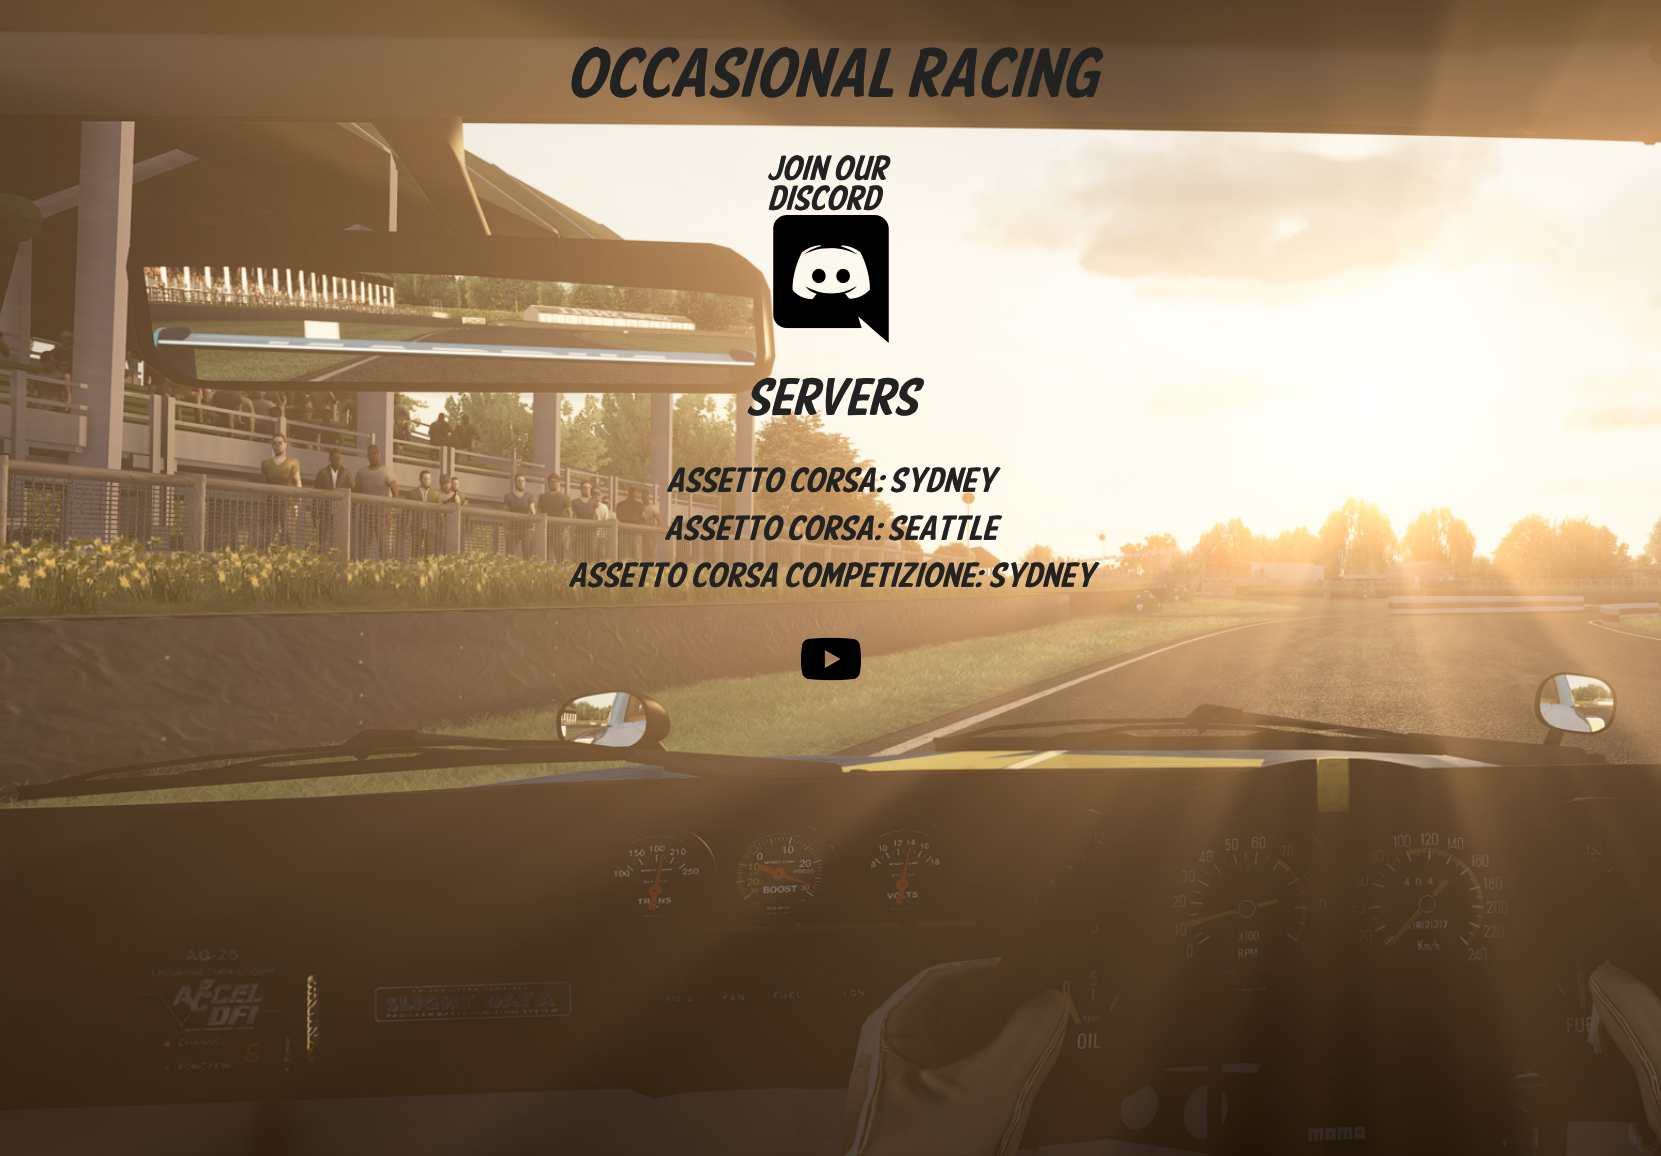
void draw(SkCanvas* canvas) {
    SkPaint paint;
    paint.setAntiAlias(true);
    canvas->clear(0xFFFFFFFF);
    canvas->drawImageRect(SkImages::DeferredFromEncodedData(SkData::MakeFromFileName("img1.png")), SkRect::MakeXYWH(0, 0, 1661, 1156), SkSamplingOptions());
    SkFont font1(fontMgr->matchFamilyStyle("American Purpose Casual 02", SkFontStyle::Normal()), 70.5f);
    font1.setSubpixel(true);
    paint.setColor(0xFF222222);
    canvas->drawString("Occasional Racing", 565, 97, font1, paint);
    SkFont font2(fontMgr->matchFamilyStyle("American Purpose Casual 02", SkFontStyle::Normal()), 35.25f);
    font2.setSubpixel(true);
    canvas->drawString("Join our", 767, 180, font2, paint);
    canvas->drawString("Discord", 767, 210, font2, paint);
    canvas->drawImageRect(SkImages::DeferredFromEncodedData(SkData::MakeFromFileName("img2.png")), SkRect::MakeXYWH(773, 215, 116, 128), SkSamplingOptions());
    SkFont font3(fontMgr->matchFamilyStyle("American Purpose Casual 02", SkFontStyle::Normal()), 53);
    font3.setSubpixel(true);
    canvas->drawString("Servers", 745, 415, font3, paint);
    canvas->drawString("Assetto Corsa: Sydney", 666, 492, font2, paint);
    canvas->drawString("Assetto Corsa: Seattle", 664, 540, font2, paint);
    canvas->drawString("Assetto Corsa Competizione: Sydney", 568, 587, font2, paint);
    canvas->drawImageRect(SkImages::DeferredFromEncodedData(SkData::MakeFromFileName("img3.png")), SkRect::MakeXYWH(801, 637, 60, 44), SkSamplingOptions());
}
